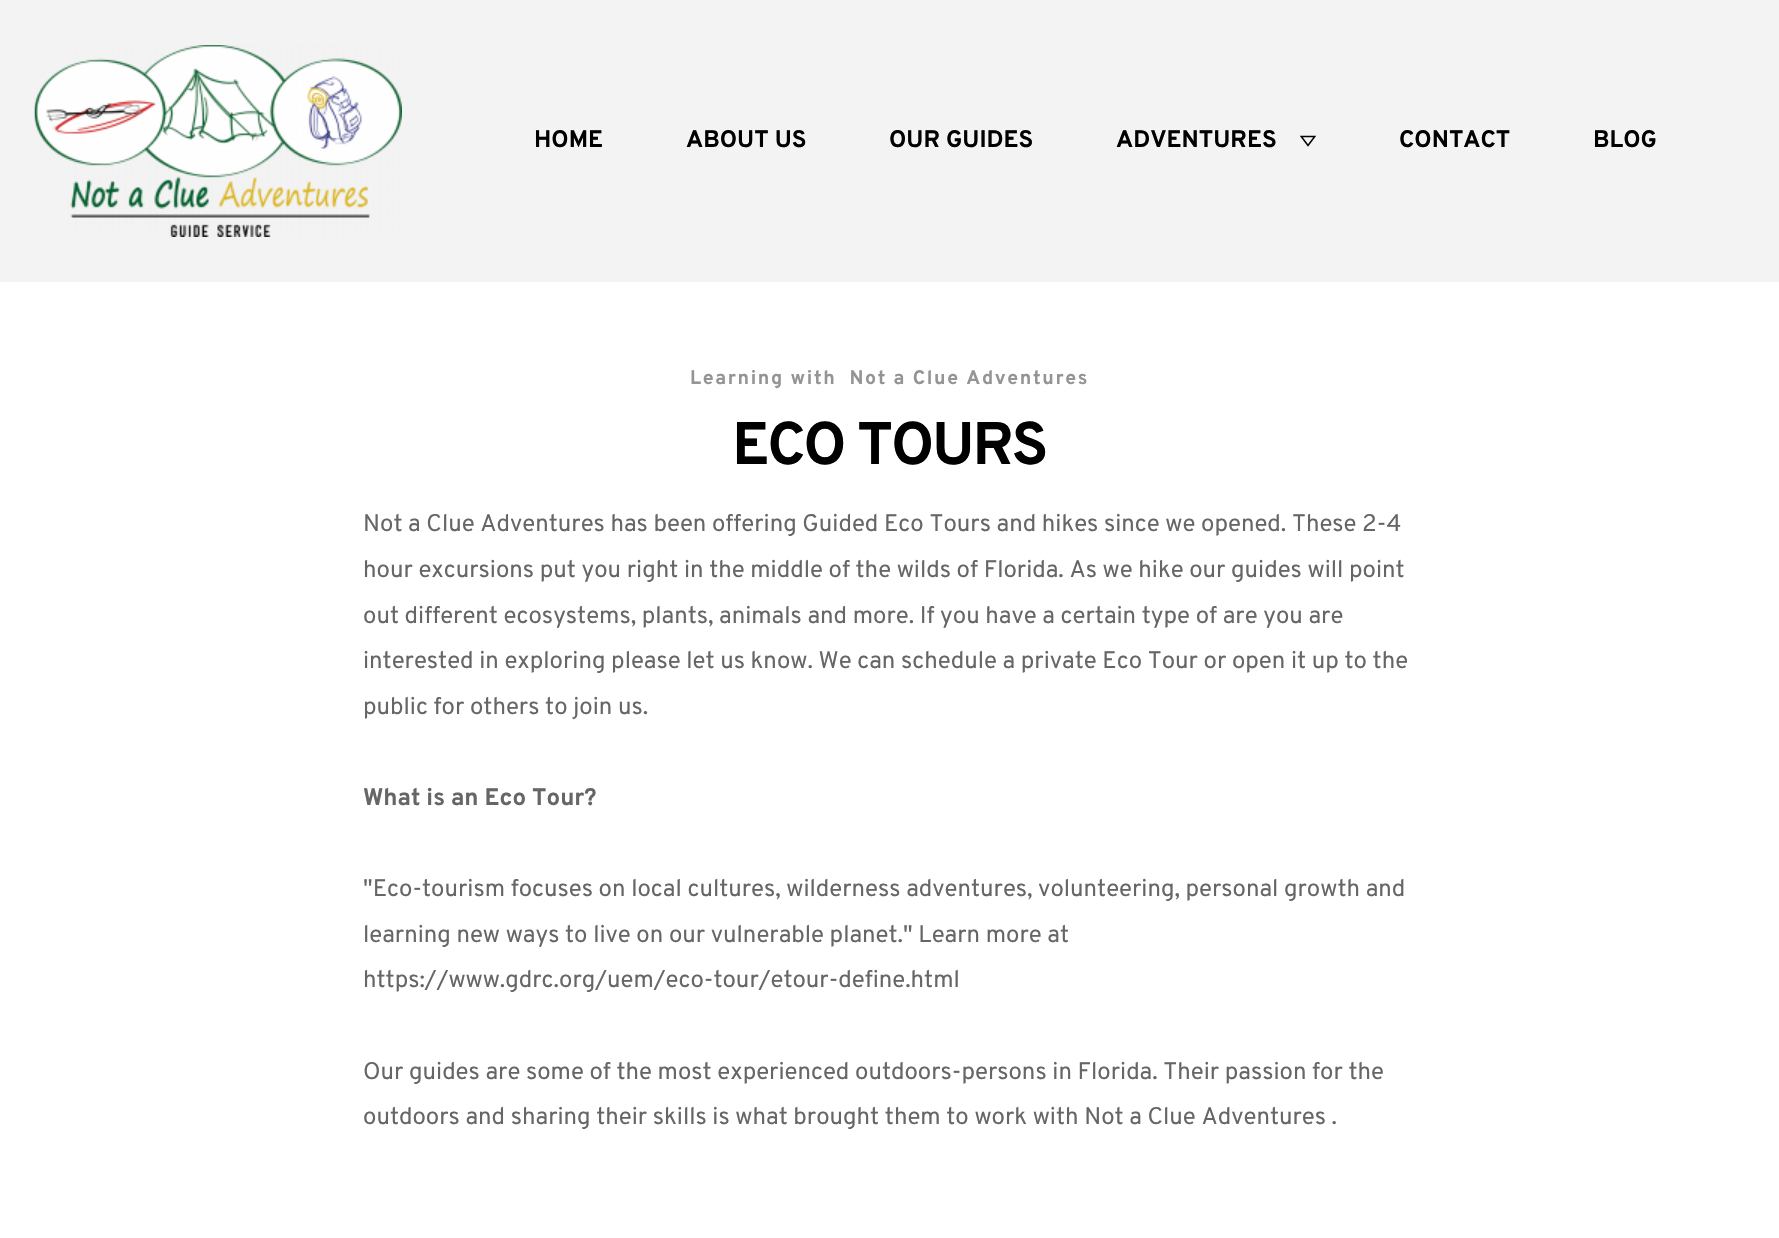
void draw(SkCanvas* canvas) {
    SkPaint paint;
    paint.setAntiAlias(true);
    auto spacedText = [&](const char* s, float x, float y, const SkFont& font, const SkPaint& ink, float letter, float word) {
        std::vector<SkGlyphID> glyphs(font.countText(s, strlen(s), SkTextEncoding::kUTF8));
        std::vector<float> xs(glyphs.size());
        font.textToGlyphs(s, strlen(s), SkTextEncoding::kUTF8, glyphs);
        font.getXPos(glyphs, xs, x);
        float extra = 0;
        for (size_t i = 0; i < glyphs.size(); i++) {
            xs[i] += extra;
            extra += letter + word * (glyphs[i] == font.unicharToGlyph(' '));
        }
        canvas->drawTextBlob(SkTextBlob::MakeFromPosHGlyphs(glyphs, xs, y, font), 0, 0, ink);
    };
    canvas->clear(0xFFFFFFFF);
    paint.setColor(0xFFF3F3F3);
    canvas->drawRect(SkRect::MakeXYWH(0, 0, 1779, 282), paint);
    canvas->drawImageRect(SkImages::DeferredFromEncodedData(SkData::MakeFromFileName("img1.png")), SkRect::MakeXYWH(34, 45, 368, 192), SkSamplingOptions());
    SkFont font1(fontMgr->matchFamilyStyle("Overpass", SkFontStyle::Bold()), 24);
    font1.setSubpixel(true);
    paint.setColor(0xFF000000);
    canvas->drawString("HOME", 534, 147, font1, paint);
    canvas->drawString("ABOUT US", 686, 147, font1, paint);
    canvas->drawString("OUR GUIDES", 889, 147, font1, paint);
    canvas->drawString("ADVENTURES", 1116, 147, font1, paint);
    canvas->drawImageRect(SkImages::DeferredFromEncodedData(SkData::MakeFromFileName("img2.png")), SkRect::MakeXYWH(1299, 135, 18, 12), SkSamplingOptions());
    canvas->drawString("CONTACT", 1399, 147, font1, paint);
    canvas->drawString("BLOG", 1593, 147, font1, paint);
    SkFont font2(fontMgr->matchFamilyStyle("Overpass", SkFontStyle::Bold()), 19.5f);
    font2.setSubpixel(true);
    paint.setColor(0xFF949494);
    spacedText("Learning with  Not a Clue Adventures", 690, 384, font2, paint, 1.65f, 0);
    SkFont font3(fontMgr->matchFamilyStyle("Overpass", SkFontStyle::Bold()), 60);
    font3.setSubpixel(true);
    paint.setColor(0xFF000000);
    spacedText("ECO TOURS", 732, 464, font3, paint, -2.25f, 0);
    SkFont font4(fontMgr->matchFamilyStyle("Overpass", SkFontStyle::Normal()), 24);
    font4.setSubpixel(true);
    paint.setColor(0xFF666666);
    canvas->drawString("Not a Clue Adventures has been offering Guided Eco Tours and hikes since we opened. These 2-4", 363, 531, font4, paint);
    canvas->drawString("hour excursions put you right in the middle of the wilds of Florida. As we hike our guides will point", 363, 577, font4, paint);
    canvas->drawString("out different ecosystems, plants, animals and more. If you have a certain type of are you are", 363, 623, font4, paint);
    canvas->drawString("interested in exploring please let us know. We can schedule a private Eco Tour or open it up to the", 363, 668, font4, paint);
    canvas->drawString("public for others to join us.", 363, 714, font4, paint);
    canvas->drawString("What is an Eco Tour?", 363, 805, font1, paint);
    canvas->drawString("\"Eco-tourism focuses on local cultures, wilderness adventures, volunteering, personal growth and", 363, 896, font4, paint);
    canvas->drawString("learning new ways to live on our vulnerable planet.\" Learn more at", 363, 942, font4, paint);
    canvas->drawString("https://www.gdrc.org/uem/eco-tour/etour-define.html", 363, 987, font4, paint);
    canvas->drawString("Our guides are some of the most experienced outdoors-persons in Florida. Their passion for the", 363, 1079, font4, paint);
    canvas->drawString("outdoors and sharing their skills is what brought them to work with Not a Clue Adventures .", 363, 1124, font4, paint);
}
